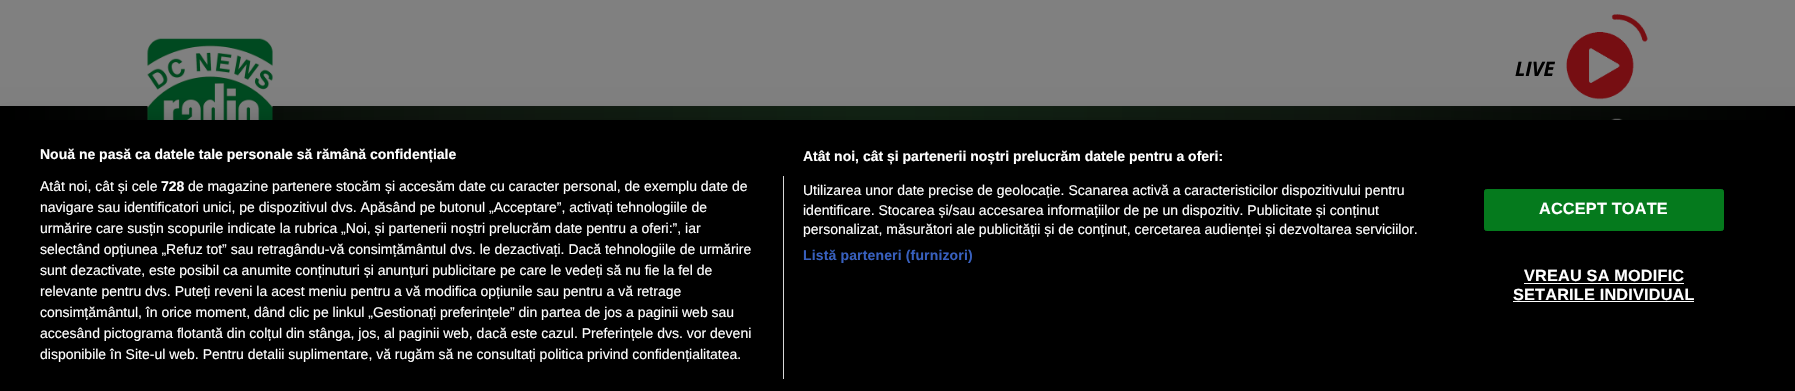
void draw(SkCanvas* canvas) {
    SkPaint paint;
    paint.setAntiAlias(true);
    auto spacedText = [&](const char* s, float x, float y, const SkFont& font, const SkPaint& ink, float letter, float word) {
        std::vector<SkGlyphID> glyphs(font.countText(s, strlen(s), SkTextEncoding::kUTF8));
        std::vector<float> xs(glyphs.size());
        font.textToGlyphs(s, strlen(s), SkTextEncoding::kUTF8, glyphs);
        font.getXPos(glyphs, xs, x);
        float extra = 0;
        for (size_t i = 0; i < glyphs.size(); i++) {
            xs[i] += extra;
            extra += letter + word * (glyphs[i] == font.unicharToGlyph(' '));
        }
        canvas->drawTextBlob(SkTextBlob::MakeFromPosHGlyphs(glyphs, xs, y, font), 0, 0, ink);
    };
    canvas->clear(0xFF808080);
    {
        const SkColor colors[] = {0xFF000000, 0xFF0F170F, 0xFF122415, 0xFF0F170F, 0xFF000000};
        const float stops[] = {0, 0.25f, 0.5f, 0.75f, 1};
        const SkPoint ends[] = {{0, 131}, {1795, 131}};
        paint.setShader(SkGradientShader::MakeLinear(ends, colors, stops, 5, SkTileMode::kClamp));
        paint.setAlpha(255);
    }
    canvas->drawRect(SkRect::MakeXYWH(0, 106, 1795, 14), paint);
    canvas->drawImageRect(SkImages::DeferredFromEncodedData(SkData::MakeFromFileName("img1.png")), SkRect::MakeXYWH(147, 38, 126, 82), SkSamplingOptions());
    canvas->drawImageRect(SkImages::DeferredFromEncodedData(SkData::MakeFromFileName("img2.png")), SkRect::MakeXYWH(1611, 118, 12, 2), SkSamplingOptions());
    SkFont font1(fontMgr->matchFamilyStyle("Open Sans", SkFontStyle::BoldItalic()), 20);
    font1.setSubpixel(true);
    paint.setShader(nullptr);
    paint.setColor(0xFF000000);
    canvas->drawString("LIVE", 1515, 76, font1, paint);
    canvas->drawImageRect(SkImages::DeferredFromEncodedData(SkData::MakeFromFileName("img3.png")), SkRect::MakeXYWH(1566, 14, 82, 86), SkSamplingOptions());
    paint.setColor(0x33000000);
    paint.setMaskFilter(SkMaskFilter::MakeBlur(kNormal_SkBlurStyle, 11));
    canvas->drawRect(SkRect::MakeXYWH(0, 120, 1795, 271), paint);
    paint.setMaskFilter(nullptr);
    paint.setColor(0xFF000000);
    canvas->drawRect(SkRect::MakeXYWH(0, 120, 1795, 271), paint);
    SkFont font2(fontMgr->matchFamilyStyle("Liberation Sans", SkFontStyle::Bold()), 14);
    font2.setSubpixel(true);
    paint.setColor(0xFFFFFFFF);
    canvas->drawString("Nouă ne pasă ca datele tale personale să rămână confidențiale", 40, 159, font2, paint);
    canvas->drawString("Atât noi, cât și partenerii noștri prelucrăm datele pentru a oferi:", 803, 161, font2, paint);
    SkFont font3(fontMgr->matchFamilyStyle("Liberation Sans", SkFontStyle::Normal()), 14);
    font3.setSubpixel(true);
    canvas->drawString("Utilizarea unor date precise de geolocație. Scanarea activă a caracteristicilor dispozitivului pentru", 803, 195, font3, paint);
    canvas->drawString("identificare. Stocarea și/sau accesarea informațiilor de pe un dispozitiv. Publicitate și conținut", 803, 215, font3, paint);
    canvas->drawString("personalizat, măsurători ale publicității și de conținut, cercetarea audienței și dezvoltarea serviciilor.", 803, 234, font3, paint);
    paint.setColor(0xFF3860BE);
    spacedText("Listă parteneri (furnizori)", 803, 260, font2, paint, 0.15f, 0);
    paint.setColor(0xFFD8D8D8);
    canvas->drawRect(SkRect::MakeXYWH(783, 176, 1, 203), paint);
    paint.setColor(0xFFFFFFFF);
    canvas->drawString("Atât noi, cât și cele", 40, 191, font3, paint);
    canvas->drawString("728", 161, 191, font2, paint);
    canvas->drawString("de magazine partenere stocăm și accesăm date cu caracter personal, de exemplu date de", 188, 191, font3, paint);
    canvas->drawString("navigare sau identificatori unici, pe dispozitivul dvs. Apăsând pe butonul „Acceptare”, activați tehnologiile de", 40, 212, font3, paint);
    canvas->drawString("urmărire care susțin scopurile indicate la rubrica „Noi, și partenerii noștri prelucrăm date pentru a oferi:”, iar", 40, 233, font3, paint);
    canvas->drawString("selectând opțiunea „Refuz tot” sau retragându-vă consimțământul dvs. le dezactivați. Dacă tehnologiile de urmărire", 40, 254, font3, paint);
    canvas->drawString("sunt dezactivate, este posibil ca anumite conținuturi și anunțuri publicitare pe care le vedeți să nu fie la fel de", 40, 275, font3, paint);
    canvas->drawString("relevante pentru dvs. Puteți reveni la acest meniu pentru a vă modifica opțiunile sau pentru a vă retrage", 40, 296, font3, paint);
    canvas->drawString("consimțământul, în orice moment, dând clic pe linkul „Gestionați preferințele” din partea de jos a paginii web sau", 40, 317, font3, paint);
    canvas->drawString("accesând pictograma flotantă din colțul din stânga, jos, al paginii web, dacă este cazul. Preferințele dvs. vor deveni", 40, 338, font3, paint);
    canvas->drawString("disponibile în Site-ul web. Pentru detalii suplimentare, vă rugăm să ne consultați politica privind confidențialitatea.", 40, 359, font3, paint);
    paint.setColor(0xFF057A1D);
    canvas->drawRoundRect(SkRect::MakeXYWH(1484.5f, 189.5f, 239, 41), 2, 2, paint);
    paint.setStyle(SkPaint::kStroke_Style);
    paint.setStrokeWidth(1);
    canvas->drawRoundRect(SkRect::MakeXYWH(1484.5f, 189.5f, 239, 41), 2, 2, paint);
    SkFont font4(fontMgr->matchFamilyStyle("Liberation Sans", SkFontStyle::Bold()), 16.25f);
    font4.setSubpixel(true);
    paint.setStyle(SkPaint::kFill_Style);
    paint.setColor(0xFFFFFFFF);
    spacedText("ACCEPT TOATE", 1539, 214, font4, paint, 0.2f, 0);
    spacedText("VREAU SA MODIFIC", 1524, 281, font4, paint, 0.2f, 0);
    canvas->drawRect(SkRect::MakeXYWH(1524, 283, 160, 1), paint);
    spacedText("SETARILE INDIVIDUAL", 1513, 300, font4, paint, 0.2f, 0);
    canvas->drawRect(SkRect::MakeXYWH(1513, 301, 181, 1), paint);
}
